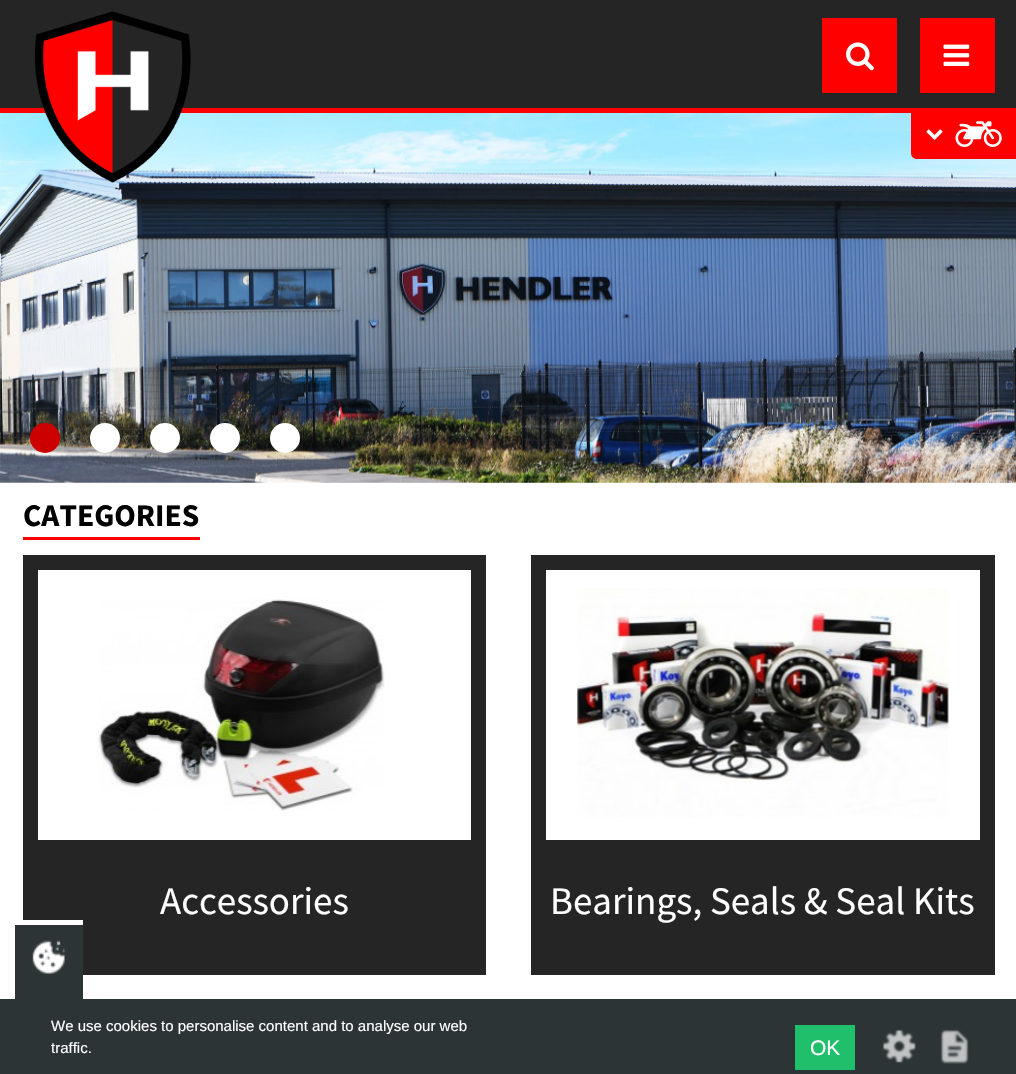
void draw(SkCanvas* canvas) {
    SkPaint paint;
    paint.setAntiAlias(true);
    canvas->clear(0xFFFFFFFF);
    paint.setColor(0xFF262525);
    canvas->drawRect(SkRect::MakeXYWH(0, 0, 1016, 108), paint);
    paint.setColor(0xFFFF0000);
    canvas->drawRect(SkRect::MakeXYWH(0, 108, 911, 5), paint);
    canvas->drawImageRect(SkImages::DeferredFromEncodedData(SkData::MakeFromFileName("img6.png")), SkRect::MakeXYWH(0, 113, 1016, 370), SkSamplingOptions());
    canvas->drawImageRect(SkImages::DeferredFromEncodedData(SkData::MakeFromFileName("img1.png")), SkRect::MakeXYWH(34, 11, 157, 172), SkSamplingOptions());
    canvas->drawRect(SkRect::MakeXYWH(822, 18, 75, 75), paint);
    canvas->drawImageRect(SkImages::DeferredFromEncodedData(SkData::MakeFromFileName("img2.png")), SkRect::MakeXYWH(846, 42, 28, 29), SkSamplingOptions());
    canvas->drawRect(SkRect::MakeXYWH(920, 18, 75, 75), paint);
    canvas->drawImageRect(SkImages::DeferredFromEncodedData(SkData::MakeFromFileName("img3.png")), SkRect::MakeXYWH(943, 44, 27, 22), SkSamplingOptions());
    canvas->drawPath(SkPathBuilder().moveTo(911, 108).lineTo(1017, 108).lineTo(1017, 159).lineTo(917, 159).cubicTo(913.5f, 159, 911, 156.5f, 911, 153).close().detach(), paint);
    canvas->drawImageRect(SkImages::DeferredFromEncodedData(SkData::MakeFromFileName("img4.png")), SkRect::MakeXYWH(926, 129, 17, 11), SkSamplingOptions());
    canvas->drawImageRect(SkImages::DeferredFromEncodedData(SkData::MakeFromFileName("img5.png")), SkRect::MakeXYWH(955, 121, 47, 26), SkSamplingOptions());
    paint.setColor(0xFFCC0000);
    canvas->drawCircle(45, 438, 15, paint);
    paint.setColor(0xFFFFFFFF);
    canvas->drawCircle(105, 438, 15, paint);
    canvas->drawCircle(165, 438, 15, paint);
    canvas->drawCircle(225, 438, 15, paint);
    canvas->drawCircle(285, 438, 15, paint);
    paint.setColor(0xFFFF0000);
    canvas->drawRect(SkRect::MakeXYWH(23, 537, 177, 3), paint);
    SkFont font1(fontMgr->matchFamilyStyle("Source Sans Pro", SkFontStyle::Bold()), 31.5f);
    font1.setSubpixel(true);
    paint.setColor(0xFF000000);
    canvas->drawString("CATEGORIES", 23, 526, font1, paint);
    paint.setColor(0xFF262525);
    canvas->drawRect(SkRect::MakeXYWH(23, 555, 463, 420), paint);
    paint.setColor(0xFFFFFFFF);
    canvas->drawRect(SkRect::MakeXYWH(38, 570, 433, 270), paint);
    canvas->drawImageRect(SkImages::DeferredFromEncodedData(SkData::MakeFromFileName("img7.png")), SkRect::MakeXYWH(98, 599, 287, 212), SkSamplingOptions());
    SkFont font2(fontMgr->matchFamilyStyle("Source Sans Pro", SkFontStyle::Normal()), 39);
    font2.setSubpixel(true);
    canvas->drawString("Accessories", 160, 914, font2, paint);
    paint.setColor(0xFF262525);
    canvas->drawRect(SkRect::MakeXYWH(531, 555, 464, 420), paint);
    paint.setColor(0xFFFFFFFF);
    canvas->drawRect(SkRect::MakeXYWH(546, 570, 434, 270), paint);
    canvas->drawImageRect(SkImages::DeferredFromEncodedData(SkData::MakeFromFileName("img8.png")), SkRect::MakeXYWH(577, 588, 372, 229), SkSamplingOptions());
    canvas->drawString("Bearings, Seals & Seal Kits", 550, 914, font2, paint);
    paint.setColor(0xFF2D3436);
    canvas->drawRect(SkRect::MakeXYWH(0, 999, 1016, 75), paint);
    canvas->drawRect(SkRect::MakeXYWH(15, 925, 68, 74), paint);
    paint.setColor(0xFFFFFFFF);
    canvas->drawRect(SkRect::MakeXYWH(15, 920, 68, 5), paint);
    canvas->drawImageRect(SkImages::DeferredFromEncodedData(SkData::MakeFromFileName("img9.png")), SkRect::MakeXYWH(32, 940, 33, 34), SkSamplingOptions());
    SkFont font3(fontMgr->matchFamilyStyle("Liberation Sans", SkFontStyle::Normal()), 15);
    font3.setSubpixel(true);
    canvas->drawString("We use cookies to personalise content and to analyse our web", 51, 1031, font3, paint);
    canvas->drawString("traffic.", 51, 1053, font3, paint);
    paint.setColor(0xFF20BF6B);
    canvas->drawRect(SkRect::MakeXYWH(795, 1025, 60, 45), paint);
    SkFont font4(fontMgr->matchFamilyStyle("Liberation Sans", SkFontStyle::Normal()), 21);
    font4.setSubpixel(true);
    paint.setColor(0xFFFFFFFF);
    canvas->drawString("OK", 810, 1055, font4, paint);
    canvas->drawImageRect(SkImages::DeferredFromEncodedData(SkData::MakeFromFileName("img10.png")), SkRect::MakeXYWH(882, 1029, 34, 34), SkSamplingOptions());
    canvas->drawImageRect(SkImages::DeferredFromEncodedData(SkData::MakeFromFileName("img11.png")), SkRect::MakeXYWH(940, 1029, 29, 35), SkSamplingOptions());
}
